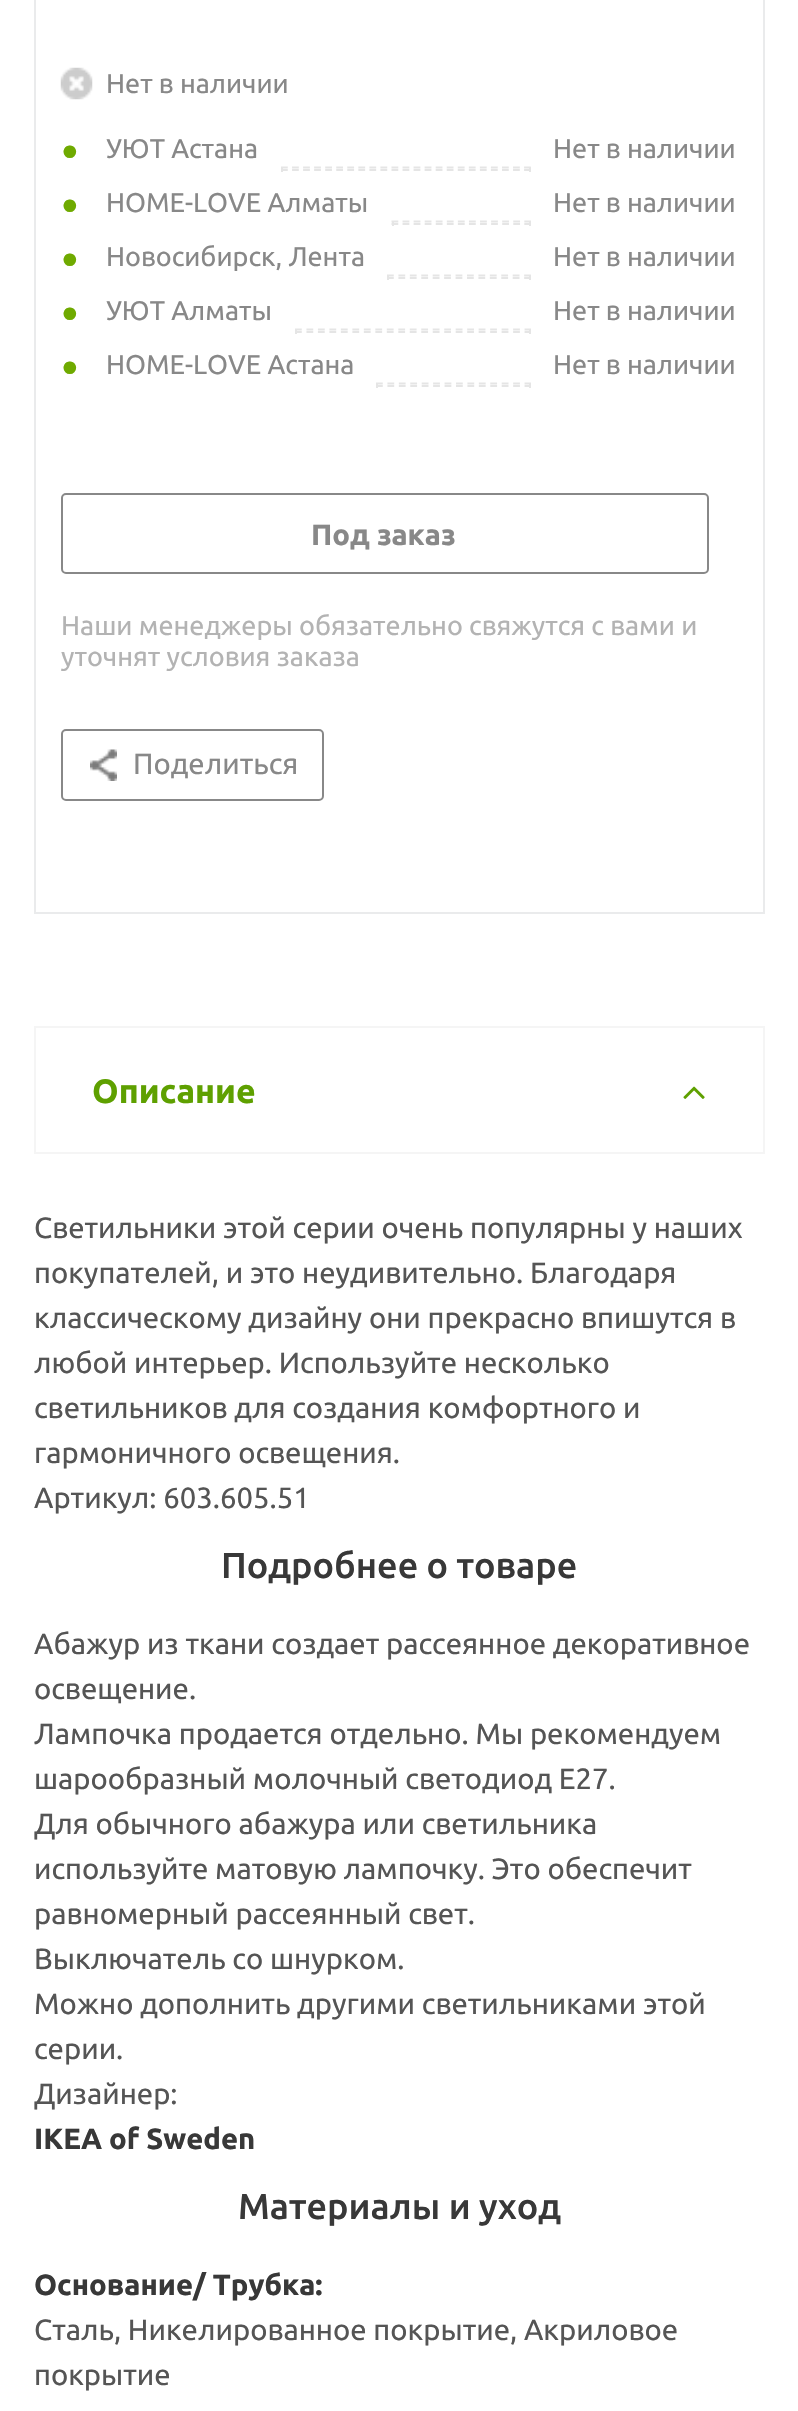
void draw(SkCanvas* canvas) {
    SkPaint paint;
    paint.setAntiAlias(true);
    canvas->clear(0xFFFFFFFF);
    paint.setStyle(SkPaint::kStroke_Style);
    paint.setStrokeWidth(2);
    paint.setColor(0xFFEAEBEC);
    canvas->drawRect(SkRect::MakeXYWH(35, -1, 729, 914), paint);
    canvas->drawImageRect(SkImages::DeferredFromEncodedData(SkData::MakeFromFileName("img1.png")), SkRect::MakeXYWH(60, 67, 33, 33), SkSamplingOptions());
    SkFont font1(fontMgr->matchFamilyStyle("Ubuntu", SkFontStyle::Normal()), 27);
    font1.setSubpixel(true);
    paint.setStyle(SkPaint::kFill_Style);
    paint.setColor(0xFF888888);
    canvas->drawString("Нет в наличии", 106, 93, font1, paint);
    SkFont font2(fontMgr->matchFamilyStyle("Liberation Sans", SkFontStyle::Normal()), 29.25f);
    font2.setSubpixel(true);
    paint.setColor(0xFF6FAA00);
    canvas->drawString("●", 61, 160, font2, paint);
    paint.setColor(0xFF888888);
    canvas->drawString("УЮТ Астана", 106, 158, font1, paint);
    canvas->drawString("Нет в наличии", 553, 158, font1, paint);
    paint.setStyle(SkPaint::kStroke_Style);
    paint.setStrokeWidth(2.2f);
    paint.setColor(0xFFE5E5E5);
    paint.setPathEffect(SkDashPathEffect::Make({{6.75f, 4.3f}}, 0));
    canvas->drawPath(SkPathBuilder().moveTo(281, 167.5f).lineTo(531, 167.5f).detach(), paint);
    paint.setPathEffect(nullptr);
    paint.setStyle(SkPaint::kFill_Style);
    canvas->drawRect(SkRect::MakeXYWH(529, 167, 2, 5), paint);
    paint.setStyle(SkPaint::kStroke_Style);
    paint.setPathEffect(SkDashPathEffect::Make({{6.75f, 4.3f}}, 0));
    canvas->drawPath(SkPathBuilder().moveTo(281, 170).lineTo(531, 170).detach(), paint);
    paint.setPathEffect(nullptr);
    paint.setStyle(SkPaint::kFill_Style);
    canvas->drawRect(SkRect::MakeXYWH(281, 167, 2, 5), paint);
    paint.setColor(0xFF6FAA00);
    canvas->drawString("●", 61, 214, font2, paint);
    paint.setColor(0xFF888888);
    canvas->drawString("HOME-LOVE Алматы", 106, 212, font1, paint);
    canvas->drawString("Нет в наличии", 553, 212, font1, paint);
    paint.setStyle(SkPaint::kStroke_Style);
    paint.setColor(0xFFE5E5E5);
    paint.setPathEffect(SkDashPathEffect::Make({{6.75f, 4.32f}}, 0));
    canvas->drawPath(SkPathBuilder().moveTo(391.5f, 221.5f).lineTo(531, 221.5f).detach(), paint);
    paint.setPathEffect(nullptr);
    paint.setStyle(SkPaint::kFill_Style);
    canvas->drawRect(SkRect::MakeXYWH(529, 221, 2, 5), paint);
    paint.setStyle(SkPaint::kStroke_Style);
    paint.setPathEffect(SkDashPathEffect::Make({{6.75f, 4.32f}}, 0));
    canvas->drawPath(SkPathBuilder().moveTo(391.5f, 224).lineTo(531, 224).detach(), paint);
    paint.setPathEffect(nullptr);
    paint.setStyle(SkPaint::kFill_Style);
    canvas->drawRect(SkRect::MakeXYWH(392, 221, 2, 5), paint);
    paint.setColor(0xFF6FAA00);
    canvas->drawString("●", 61, 268, font2, paint);
    paint.setColor(0xFF888888);
    canvas->drawString("Новосибирск, Лента", 106, 266, font1, paint);
    canvas->drawString("Нет в наличии", 553, 266, font1, paint);
    paint.setStyle(SkPaint::kStroke_Style);
    paint.setColor(0xFFE5E5E5);
    paint.setPathEffect(SkDashPathEffect::Make({{6.75f, 4.68f}}, 0));
    canvas->drawPath(SkPathBuilder().moveTo(387, 275.5f).lineTo(531, 275.5f).detach(), paint);
    paint.setPathEffect(nullptr);
    paint.setStyle(SkPaint::kFill_Style);
    canvas->drawRect(SkRect::MakeXYWH(529, 275, 2, 5), paint);
    paint.setStyle(SkPaint::kStroke_Style);
    paint.setPathEffect(SkDashPathEffect::Make({{6.75f, 4.68f}}, 0));
    canvas->drawPath(SkPathBuilder().moveTo(387, 278).lineTo(531, 278).detach(), paint);
    paint.setPathEffect(nullptr);
    paint.setStyle(SkPaint::kFill_Style);
    canvas->drawRect(SkRect::MakeXYWH(387, 275, 2, 5), paint);
    paint.setColor(0xFF6FAA00);
    canvas->drawString("●", 61, 322, font2, paint);
    paint.setColor(0xFF888888);
    canvas->drawString("УЮТ Алматы", 106, 320, font1, paint);
    canvas->drawString("Нет в наличии", 553, 320, font1, paint);
    paint.setStyle(SkPaint::kStroke_Style);
    paint.setColor(0xFFE5E5E5);
    paint.setPathEffect(SkDashPathEffect::Make({{6.75f, 4.73f}}, 0));
    canvas->drawPath(SkPathBuilder().moveTo(295, 329.5f).lineTo(531, 329.5f).detach(), paint);
    paint.setPathEffect(nullptr);
    paint.setStyle(SkPaint::kFill_Style);
    canvas->drawRect(SkRect::MakeXYWH(529, 329, 2, 5), paint);
    paint.setStyle(SkPaint::kStroke_Style);
    paint.setPathEffect(SkDashPathEffect::Make({{6.75f, 4.73f}}, 0));
    canvas->drawPath(SkPathBuilder().moveTo(295, 332).lineTo(531, 332).detach(), paint);
    paint.setPathEffect(nullptr);
    paint.setStyle(SkPaint::kFill_Style);
    canvas->drawRect(SkRect::MakeXYWH(295, 329, 2, 5), paint);
    paint.setColor(0xFF6FAA00);
    canvas->drawString("●", 61, 376, font2, paint);
    paint.setColor(0xFF888888);
    canvas->drawString("HOME-LOVE Астана", 106, 374, font1, paint);
    canvas->drawString("Нет в наличии", 553, 374, font1, paint);
    paint.setStyle(SkPaint::kStroke_Style);
    paint.setColor(0xFFE5E5E5);
    paint.setPathEffect(SkDashPathEffect::Make({{6.75f, 4.68f}}, 0));
    canvas->drawPath(SkPathBuilder().moveTo(376, 383.5f).lineTo(531, 383.5f).detach(), paint);
    paint.setPathEffect(nullptr);
    paint.setStyle(SkPaint::kFill_Style);
    canvas->drawRect(SkRect::MakeXYWH(529, 383, 2, 5), paint);
    paint.setStyle(SkPaint::kStroke_Style);
    paint.setPathEffect(SkDashPathEffect::Make({{6.75f, 4.68f}}, 0));
    canvas->drawPath(SkPathBuilder().moveTo(376, 386).lineTo(531, 386).detach(), paint);
    paint.setPathEffect(nullptr);
    paint.setStyle(SkPaint::kFill_Style);
    canvas->drawRect(SkRect::MakeXYWH(376, 383, 2, 5), paint);
    paint.setStyle(SkPaint::kStroke_Style);
    paint.setStrokeWidth(2);
    paint.setColor(0xFF888888);
    canvas->drawRoundRect(SkRect::MakeXYWH(62, 494, 646, 79), 4, 4, paint);
    SkFont font3(fontMgr->matchFamilyStyle("Ubuntu", SkFontStyle::Bold()), 29.25f);
    font3.setSubpixel(true);
    paint.setStyle(SkPaint::kFill_Style);
    canvas->drawString("Под заказ", 311, 545, font3, paint);
    paint.setColor(0xFFB3B3B3);
    canvas->drawString("Наши менеджеры обязательно свяжутся с вами и", 61, 635, font1, paint);
    canvas->drawString("уточнят условия заказа", 61, 666, font1, paint);
    paint.setStyle(SkPaint::kStroke_Style);
    paint.setColor(0xFF888888);
    canvas->drawRoundRect(SkRect::MakeXYWH(62, 730, 261, 70), 4, 4, paint);
    canvas->drawImageRect(SkImages::DeferredFromEncodedData(SkData::MakeFromFileName("img2.png")), SkRect::MakeXYWH(90, 749, 27, 32), SkSamplingOptions());
    SkFont font4(fontMgr->matchFamilyStyle("Ubuntu", SkFontStyle::Normal()), 29.25f);
    font4.setSubpixel(true);
    paint.setStyle(SkPaint::kFill_Style);
    canvas->drawString("Поделиться", 133, 774, font4, paint);
    paint.setStyle(SkPaint::kStroke_Style);
    paint.setColor(0xFFF5F5F5);
    canvas->drawRect(SkRect::MakeXYWH(35, 1027, 729, 126), paint);
    SkFont font5(fontMgr->matchFamilyStyle("Ubuntu", SkFontStyle::Bold()), 33.75f);
    font5.setSubpixel(true);
    paint.setStyle(SkPaint::kFill_Style);
    paint.setColor(0xFF5EA000);
    canvas->drawString("Описание", 92, 1103, font5, paint);
    canvas->drawImageRect(SkImages::DeferredFromEncodedData(SkData::MakeFromFileName("img3.png")), SkRect::MakeXYWH(683, 1086, 22, 13), SkSamplingOptions());
    paint.setColor(0xFF555555);
    canvas->drawString("Светильники этой серии очень популярны у наших", 34, 1238, font4, paint);
    canvas->drawString("покупателей, и это неудивительно. Благодаря", 34, 1283, font4, paint);
    canvas->drawString("классическому дизайну они прекрасно впишутся в", 34, 1328, font4, paint);
    canvas->drawString("любой интерьер. Используйте несколько", 34, 1373, font4, paint);
    canvas->drawString("светильников для создания комфортного и", 34, 1418, font4, paint);
    canvas->drawString("гармоничного освещения.", 34, 1463, font4, paint);
    canvas->drawString("Артикул: 603.605.51", 34, 1508, font4, paint);
    SkFont font6(fontMgr->matchFamilyStyle("Ubuntu", SkFontStyle(500, SkFontStyle::kNormal_Width, SkFontStyle::kUpright_Slant)), 36);
    font6.setSubpixel(true);
    paint.setColor(0xFF383838);
    canvas->drawString("Подробнее о товаре", 221, 1578, font6, paint);
    paint.setColor(0xFF555555);
    canvas->drawString("Абажур из ткани создает рассеянное декоративное", 34, 1654, font4, paint);
    canvas->drawString("освещение.", 34, 1699, font4, paint);
    canvas->drawString("Лампочка продается отдельно. Мы рекомендуем", 34, 1744, font4, paint);
    canvas->drawString("шарообразный молочный светодиод E27.", 34, 1789, font4, paint);
    canvas->drawString("Для обычного абажура или светильника", 34, 1834, font4, paint);
    canvas->drawString("используйте матовую лампочку. Это обеспечит", 34, 1879, font4, paint);
    canvas->drawString("равномерный рассеянный свет.", 34, 1924, font4, paint);
    canvas->drawString("Выключатель со шнурком.", 34, 1969, font4, paint);
    canvas->drawString("Можно дополнить другими светильниками этой", 34, 2014, font4, paint);
    canvas->drawString("серии.", 34, 2059, font4, paint);
    canvas->drawString("Дизайнер:", 34, 2104, font4, paint);
    paint.setColor(0xFF383838);
    canvas->drawString("IKEA of Sweden", 34, 2149, font3, paint);
    canvas->drawString("Материалы и уход", 238, 2219, font6, paint);
    canvas->drawString("Основание/ Трубка:", 34, 2295, font3, paint);
    paint.setColor(0xFF555555);
    canvas->drawString("Сталь, Никелированное покрытие, Акриловое", 34, 2340, font4, paint);
    canvas->drawString("покрытие", 34, 2385, font4, paint);
}
